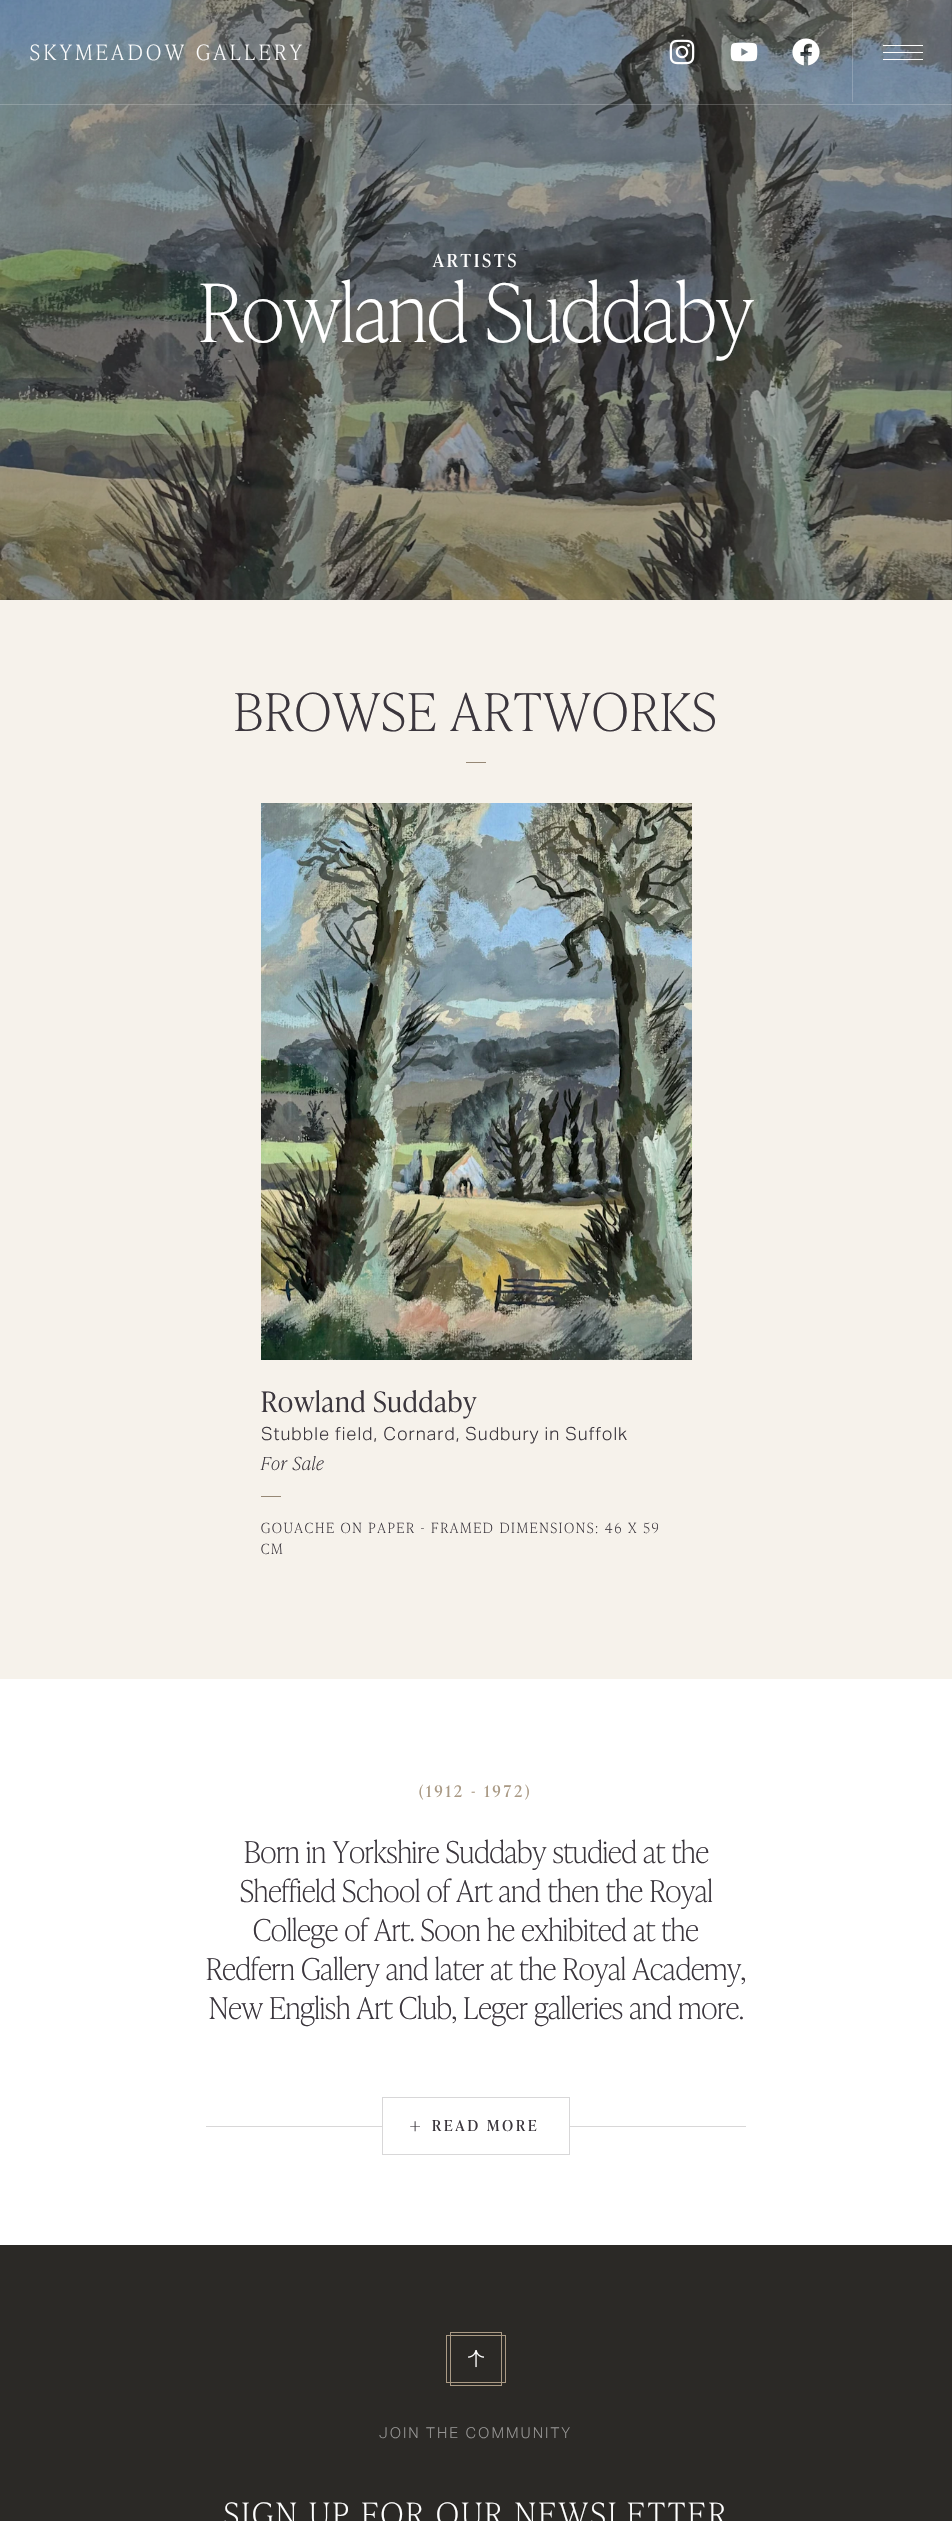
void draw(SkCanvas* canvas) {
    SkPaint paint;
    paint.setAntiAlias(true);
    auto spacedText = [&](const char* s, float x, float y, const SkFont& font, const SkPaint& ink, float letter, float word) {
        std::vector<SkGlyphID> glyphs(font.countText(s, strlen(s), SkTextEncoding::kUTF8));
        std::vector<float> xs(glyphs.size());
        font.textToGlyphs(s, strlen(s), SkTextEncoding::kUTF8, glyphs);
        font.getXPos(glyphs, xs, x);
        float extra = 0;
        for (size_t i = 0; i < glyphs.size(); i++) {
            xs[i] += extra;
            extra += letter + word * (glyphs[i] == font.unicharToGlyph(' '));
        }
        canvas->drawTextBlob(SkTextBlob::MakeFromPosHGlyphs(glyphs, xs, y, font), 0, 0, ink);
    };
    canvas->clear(0xFF3B363D);
    canvas->drawImageRect(SkImages::DeferredFromEncodedData(SkData::MakeFromFileName("img4.png")), SkRect::MakeXYWH(0, 0, 952, 600), SkSamplingOptions());
    paint.setColor(0x33FFFFFF);
    canvas->drawRect(SkRect::MakeXYWH(0, 104, 952, 1), paint);
    SkFont font1(fontMgr->matchFamilyStyle("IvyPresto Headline", SkFontStyle(100, SkFontStyle::kNormal_Width, SkFontStyle::kUpright_Slant)), 21);
    font1.setSubpixel(true);
    paint.setColor(0xFFFFFFFF);
    spacedText("SKYMEADOW GALLERY", 30, 60, font1, paint, 4, 0);
    canvas->drawImageRect(SkImages::DeferredFromEncodedData(SkData::MakeFromFileName("img1.png")), SkRect::MakeXYWH(669, 39, 26, 26), SkSamplingOptions());
    canvas->drawImageRect(SkImages::DeferredFromEncodedData(SkData::MakeFromFileName("img2.png")), SkRect::MakeXYWH(730, 42, 28, 20), SkSamplingOptions());
    canvas->drawImageRect(SkImages::DeferredFromEncodedData(SkData::MakeFromFileName("img3.png")), SkRect::MakeXYWH(792, 38, 28, 28), SkSamplingOptions());
    paint.setColor(0x33FFFFFF);
    canvas->drawRect(SkRect::MakeXYWH(852, 2, 1, 100), paint);
    paint.setColor(0xFFFFFFFF);
    canvas->drawRect(SkRect::MakeXYWH(883, 45, 40, 1), paint);
    canvas->drawRect(SkRect::MakeXYWH(883, 52, 40, 1), paint);
    canvas->drawRect(SkRect::MakeXYWH(883, 59, 40, 1), paint);
    SkFont font2(fontMgr->matchFamilyStyle("IvyPresto Headline", SkFontStyle::Normal()), 18);
    font2.setSubpixel(true);
    spacedText("ARTISTS", 433, 267, font2, paint, 3, 0);
    SkFont font3(fontMgr->matchFamilyStyle("IvyPresto Headline", SkFontStyle(100, SkFontStyle::kNormal_Width, SkFontStyle::kUpright_Slant)), 80);
    font3.setSubpixel(true);
    canvas->drawString("Rowland Suddaby", 199, 342, font3, paint);
    paint.setColor(0xFFF6F2EB);
    canvas->drawRect(SkRect::MakeXYWH(0, 600, 952, 1079), paint);
    SkFont font4(fontMgr->matchFamilyStyle("IvyPresto Headline", SkFontStyle(100, SkFontStyle::kNormal_Width, SkFontStyle::kUpright_Slant)), 52);
    font4.setSubpixel(true);
    paint.setColor(0xFF3B363D);
    spacedText("BROWSE ARTWORKS", 234, 731, font4, paint, 2, 0);
    paint.setColor(0xFF968875);
    canvas->drawRect(SkRect::MakeXYWH(466, 762, 20, 1), paint);
    canvas->drawImageRect(SkImages::DeferredFromEncodedData(SkData::MakeFromFileName("img5.png")), SkRect::MakeXYWH(261, 803, 431, 557), SkSamplingOptions());
    SkFont font5(fontMgr->matchFamilyStyle("IvyPresto Headline", SkFontStyle(300, SkFontStyle::kNormal_Width, SkFontStyle::kUpright_Slant)), 28);
    font5.setSubpixel(true);
    paint.setColor(0xFF3B363D);
    spacedText("Rowland Suddaby", 261, 1412, font5, paint, 1, 0);
    SkFont font6(fontMgr->matchFamilyStyle("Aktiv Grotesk", SkFontStyle(300, SkFontStyle::kNormal_Width, SkFontStyle::kUpright_Slant)), 18);
    font6.setSubpixel(true);
    spacedText("Stubble field, Cornard, Sudbury in Suffolk", 261, 1440, font6, paint, 1, 0);
    SkFont font7(fontMgr->matchFamilyStyle("IvyPresto Headline", SkFontStyle(100, SkFontStyle::kNormal_Width, SkFontStyle::kItalic_Slant)), 18);
    font7.setSubpixel(true);
    spacedText("For Sale", 261, 1470, font7, paint, 1, 0);
    paint.setColor(0xFF968875);
    canvas->drawRect(SkRect::MakeXYWH(261, 1496, 20, 1), paint);
    SkFont font8(fontMgr->matchFamilyStyle("IvyPresto Headline", SkFontStyle(100, SkFontStyle::kNormal_Width, SkFontStyle::kUpright_Slant)), 14);
    font8.setSubpixel(true);
    paint.setColor(0xFF3B363D);
    spacedText("GOUACHE ON PAPER - FRAMED DIMENSIONS: 46 X 59", 261, 1533, font8, paint, 2, 0);
    spacedText("CM", 261, 1554, font8, paint, 2, 0);
    paint.setColor(0xFFFFFFFF);
    canvas->drawRect(SkRect::MakeXYWH(0, 1679, 952, 566), paint);
    SkFont font9(fontMgr->matchFamilyStyle("IvyPresto Headline", SkFontStyle::Normal()), 16);
    font9.setSubpixel(true);
    paint.setColor(0xFFAA9A85);
    spacedText("(1912 - 1972)", 419, 1797, font9, paint, 3, 0);
    SkFont font10(fontMgr->matchFamilyStyle("IvyPresto Headline", SkFontStyle(100, SkFontStyle::kNormal_Width, SkFontStyle::kUpright_Slant)), 30);
    font10.setSubpixel(true);
    paint.setColor(0xFF3B363D);
    canvas->drawString("Born in Yorkshire Suddaby studied at the", 244, 1863, font10, paint);
    canvas->drawString("Sheffield School of Art and then the Royal", 240, 1902, font10, paint);
    canvas->drawString("College of Art. Soon he exhibited at the", 253, 1941, font10, paint);
    canvas->drawString("Redfern Gallery and later at the Royal Academy,", 206, 1980, font10, paint);
    canvas->drawString("New English Art Club, Leger galleries and more.", 209, 2019, font10, paint);
    paint.setColor(0xFFD8D7D8);
    canvas->drawRect(SkRect::MakeXYWH(206, 2126, 540, 1), paint);
    paint.setColor(0xFFFFFFFF);
    canvas->drawRect(SkRect::MakeXYWH(383, 2126, 186, 1), paint);
    paint.setStyle(SkPaint::kStroke_Style);
    paint.setStrokeWidth(1);
    paint.setColor(0xFFD8D7D8);
    canvas->drawRect(SkRect::MakeXYWH(382.5f, 2097.5f, 187, 57), paint);
    SkFont font11(fontMgr->matchFamilyStyle("IvyPresto Headline", SkFontStyle::Normal()), 24);
    font11.setSubpixel(true);
    paint.setStyle(SkPaint::kFill_Style);
    paint.setColor(0xFF3B363D);
    spacedText("+", 409, 2135, font11, paint, 3, 0);
    SkFont font12(fontMgr->matchFamilyStyle("IvyPresto Headline", SkFontStyle::Normal()), 15);
    font12.setSubpixel(true);
    spacedText("READ MORE", 432, 2131, font12, paint, 3, 0);
    paint.setColor(0xFF2B2926);
    canvas->drawRect(SkRect::MakeXYWH(0, 2245, 952, 276), paint);
    paint.setStyle(SkPaint::kStroke_Style);
    paint.setColor(0xFFAA9A85);
    canvas->drawRect(SkRect::MakeXYWH(450.5f, 2332.5f, 51, 53), paint);
    canvas->drawRect(SkRect::MakeXYWH(446.5f, 2335.5f, 59, 47), paint);
    canvas->drawImageRect(SkImages::DeferredFromEncodedData(SkData::MakeFromFileName("img6.png")), SkRect::MakeXYWH(468, 2350, 16, 18), SkSamplingOptions());
    SkFont font13(fontMgr->matchFamilyStyle("Aktiv Grotesk", SkFontStyle(300, SkFontStyle::kNormal_Width, SkFontStyle::kUpright_Slant)), 15);
    font13.setSubpixel(true);
    paint.setStyle(SkPaint::kFill_Style);
    paint.setColor(0xFF959493);
    spacedText("JOIN THE COMMUNITY", 379, 2438, font13, paint, 2, 0);
    SkFont font14(fontMgr->matchFamilyStyle("IvyPresto Headline", SkFontStyle(100, SkFontStyle::kNormal_Width, SkFontStyle::kUpright_Slant)), 32);
    font14.setSubpixel(true);
    paint.setColor(0xFFFFFFFF);
    spacedText("SIGN UP FOR OUR NEWSLETTER", 224, 2526, font14, paint, 3, 0);
}
